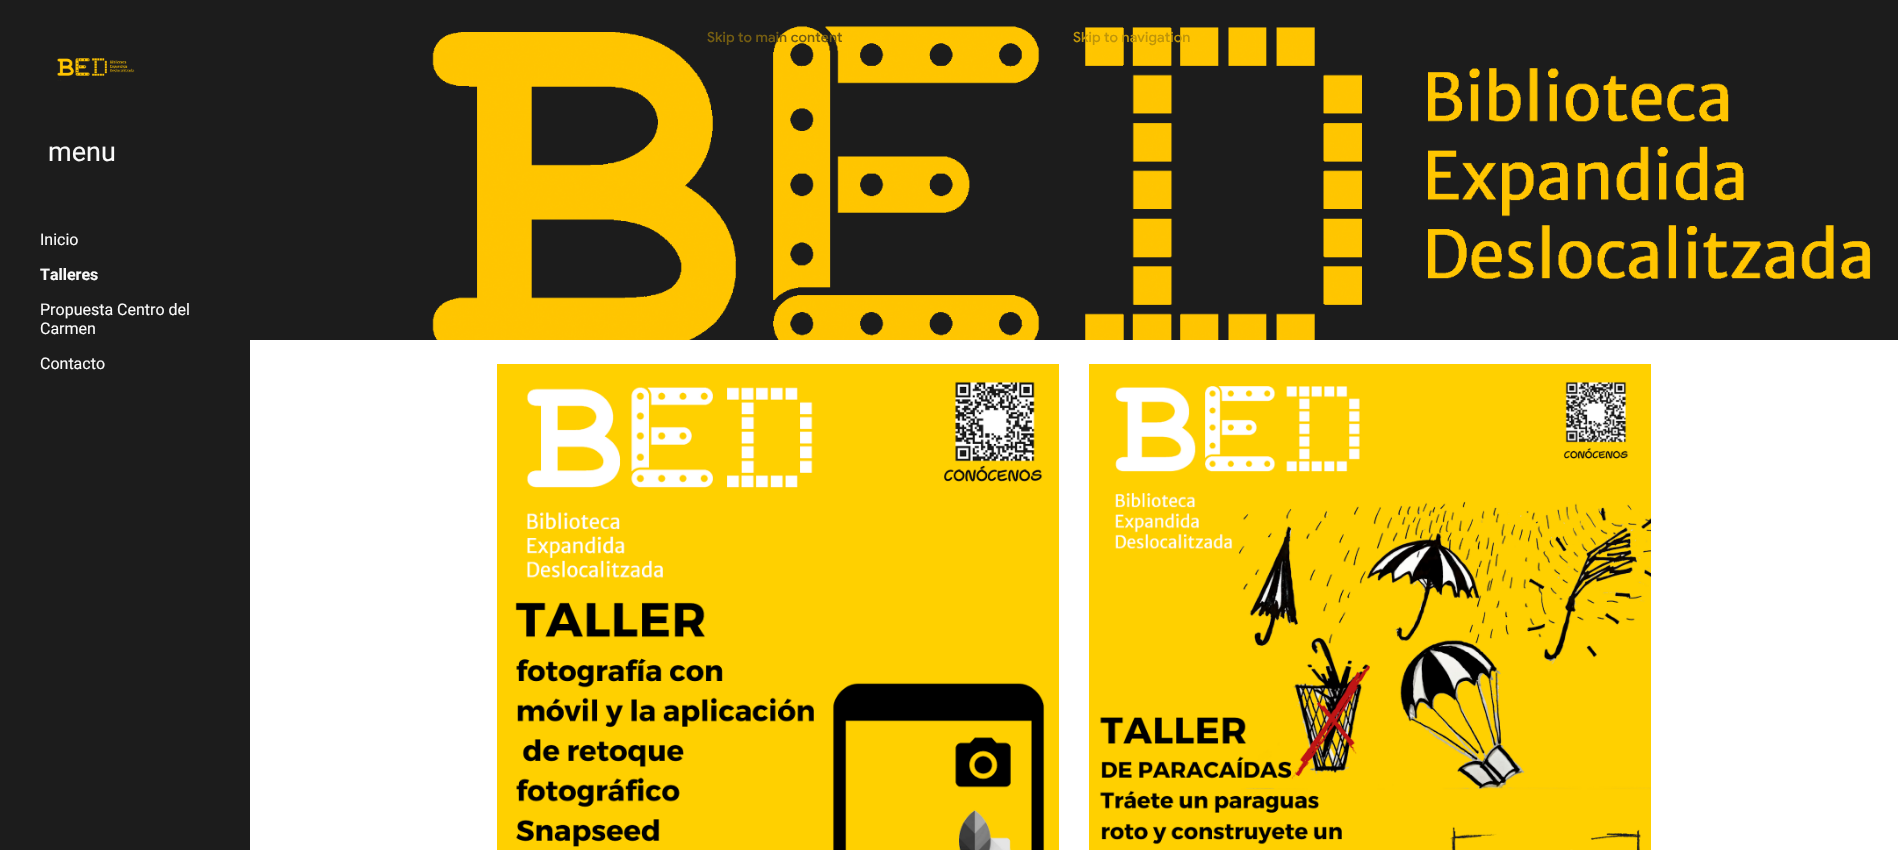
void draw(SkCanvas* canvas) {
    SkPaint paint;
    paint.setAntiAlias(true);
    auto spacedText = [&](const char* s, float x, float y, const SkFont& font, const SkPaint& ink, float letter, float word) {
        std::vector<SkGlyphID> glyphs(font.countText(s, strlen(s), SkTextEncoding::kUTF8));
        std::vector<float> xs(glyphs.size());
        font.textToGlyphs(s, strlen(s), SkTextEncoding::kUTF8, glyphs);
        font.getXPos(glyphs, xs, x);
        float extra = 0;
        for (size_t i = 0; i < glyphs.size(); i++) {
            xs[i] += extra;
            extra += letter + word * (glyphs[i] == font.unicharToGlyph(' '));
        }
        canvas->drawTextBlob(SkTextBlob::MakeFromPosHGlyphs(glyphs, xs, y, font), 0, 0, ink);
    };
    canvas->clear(0xFFFFFFFF);
    paint.setColor(0xFF1C1C1C);
    canvas->drawRect(SkRect::MakeXYWH(250, 0, 1648, 340), paint);
    canvas->drawImageRect(SkImages::DeferredFromEncodedData(SkData::MakeFromFileName("img2.png")), SkRect::MakeXYWH(432, 26, 1439, 314), SkSamplingOptions());
    SkFont font1(fontMgr->matchFamilyStyle("Google Sans", SkFontStyle(500, SkFontStyle::kNormal_Width, SkFontStyle::kUpright_Slant)), 14);
    font1.setSubpixel(true);
    paint.setColor(0xFF745D11);
    spacedText("Skip to main content", 707, 42, font1, paint, 0.1f, 0);
    paint.setColor(0xFFBF9508);
    spacedText("Skip to navigation", 1073, 42, font1, paint, 0.1f, 0);
    paint.setColor(0xFF1C1C1C);
    canvas->drawRect(SkRect::MakeXYWH(0, 0, 250, 850), paint);
    canvas->drawImageRect(SkImages::DeferredFromEncodedData(SkData::MakeFromFileName("img1.png")), SkRect::MakeXYWH(57, 58, 78, 23), SkSamplingOptions());
    SkFont font2(fontMgr->matchFamilyStyle("Roboto", SkFontStyle::Normal()), 27);
    font2.setSubpixel(true);
    paint.setColor(0xFFF9F9F9);
    canvas->drawString("menu", 48, 161, font2, paint);
    SkFont font3(fontMgr->matchFamilyStyle("Roboto", SkFontStyle::Normal()), 16);
    font3.setSubpixel(true);
    canvas->drawString("Inicio", 40, 245, font3, paint);
    SkFont font4(fontMgr->matchFamilyStyle("Roboto", SkFontStyle::Bold()), 16);
    font4.setSubpixel(true);
    canvas->drawString("Talleres", 40, 280, font4, paint);
    canvas->drawString("Propuesta Centro del", 40, 315, font3, paint);
    canvas->drawString("Carmen", 40, 334, font3, paint);
    canvas->drawString("Contacto", 40, 369, font3, paint);
    canvas->drawImageRect(SkImages::DeferredFromEncodedData(SkData::MakeFromFileName("img3.png")), SkRect::MakeXYWH(497, 364, 562, 486), SkSamplingOptions());
    canvas->drawImageRect(SkImages::DeferredFromEncodedData(SkData::MakeFromFileName("img4.png")), SkRect::MakeXYWH(1089, 364, 562, 486), SkSamplingOptions());
}
